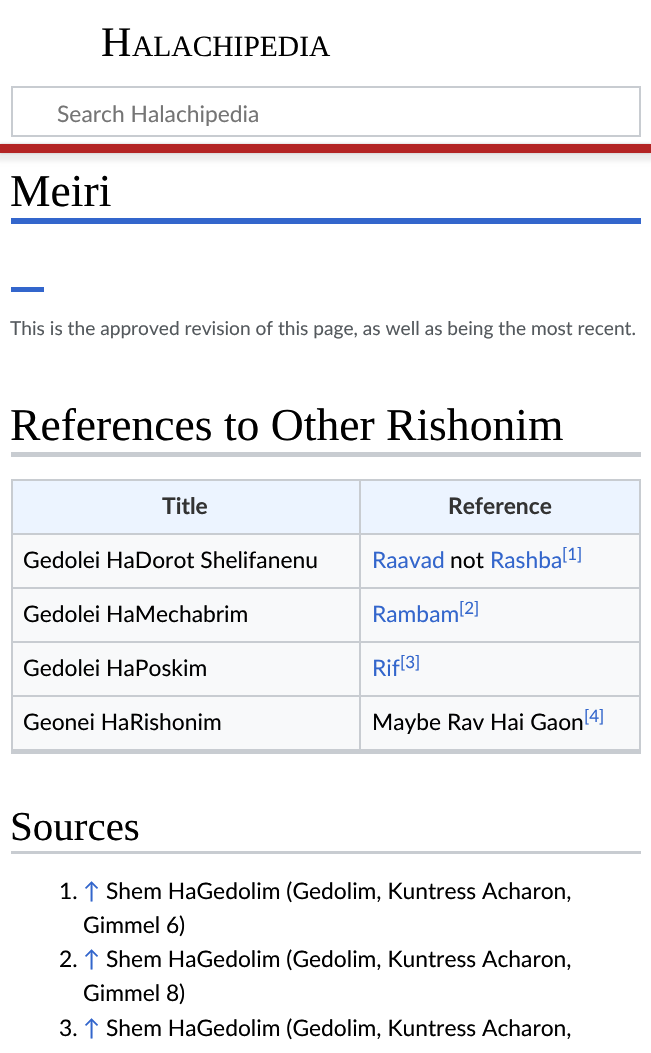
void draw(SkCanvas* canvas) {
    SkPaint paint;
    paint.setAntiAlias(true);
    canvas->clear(0xFFFFFFFF);
    SkFont font1(fontMgr->matchFamilyStyle("Liberation Serif", SkFontStyle::Normal()), 42);
    font1.setSubpixel(true);
    paint.setColor(0xFF000000);
    canvas->drawString("H", 101, 56, font1, paint);
    SkFont font2(fontMgr->matchFamilyStyle("Liberation Serif", SkFontStyle::Normal()), 29.5f);
    font2.setSubpixel(true);
    canvas->drawString("ALACHIPEDIA", 132, 56, font2, paint);
    paint.setStyle(SkPaint::kStroke_Style);
    paint.setStrokeWidth(2);
    paint.setColor(0xFFC8CCD1);
    canvas->drawRect(SkRect::MakeXYWH(12, 87, 628, 49), paint);
    SkFont font3(fontMgr->matchFamilyStyle("Lato", SkFontStyle::Normal()), 22.8f);
    font3.setSubpixel(true);
    paint.setStyle(SkPaint::kFill_Style);
    paint.setColor(0xFF757575);
    canvas->drawString("Search Halachipedia", 57, 122, font3, paint);
    paint.setColor(0x33000000);
    paint.setMaskFilter(SkMaskFilter::MakeBlur(kNormal_SkBlurStyle, 1.5f));
    canvas->drawRect(SkRect::MakeXYWH(0, 144, 651, 9), paint);
    paint.setMaskFilter(nullptr);
    paint.setColor(0x12000000);
    paint.setMaskFilter(SkMaskFilter::MakeBlur(kNormal_SkBlurStyle, 2));
    canvas->drawRect(SkRect::MakeXYWH(-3, 146, 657, 15), paint);
    paint.setMaskFilter(nullptr);
    paint.setColor(0xFFB32424);
    canvas->drawRect(SkRect::MakeXYWH(0, 144, 651, 9), paint);
    paint.setColor(0xFF3366CC);
    canvas->drawRect(SkRect::MakeXYWH(11, 218, 630, 6), paint);
    SkFont font4(fontMgr->matchFamilyStyle("Liberation Serif", SkFontStyle::Normal()), 45.6f);
    font4.setSubpixel(true);
    paint.setColor(0xFF000000);
    canvas->drawString("Meiri", 10, 206, font4, paint);
    paint.setColor(0xFF3366CC);
    canvas->drawRect(SkRect::MakeXYWH(11, 287, 33, 5), paint);
    SkFont font5(fontMgr->matchFamilyStyle("Lato", SkFontStyle::Normal()), 19.15f);
    font5.setSubpixel(true);
    paint.setColor(0xFF54595D);
    canvas->drawString("This is the approved revision of this page, as well as being the most recent.", 10, 335, font5, paint);
    paint.setColor(0xFF000000);
    canvas->drawString("References to Other Rishonim", 10, 440, font4, paint);
    paint.setColor(0xFFC8CCD1);
    canvas->drawRect(SkRect::MakeXYWH(11, 452, 630, 5), paint);
    paint.setColor(0xFFF8F9FA);
    canvas->drawRect(SkRect::MakeXYWH(13, 535, 626, 214), paint);
    paint.setColor(0xFFC8CCD1);
    canvas->drawRect(SkRect::MakeXYWH(11, 479, 630, 2), paint);
    canvas->drawRect(SkRect::MakeXYWH(639, 479, 2, 274), paint);
    canvas->drawRect(SkRect::MakeXYWH(11, 479, 2, 274), paint);
    canvas->drawRect(SkRect::MakeXYWH(359, 695, 282, 2), paint);
    canvas->drawRect(SkRect::MakeXYWH(359, 695, 2, 57), paint);
    canvas->drawRect(SkRect::MakeXYWH(11, 749, 630, 5), paint);
    paint.setColor(0xFFECF4FF);
    canvas->drawRect(SkRect::MakeXYWH(13, 481, 346, 52), paint);
    SkFont font6(fontMgr->matchFamilyStyle("Lato", SkFontStyle::Bold()), 22.8f);
    font6.setSubpixel(true);
    paint.setColor(0xFF333333);
    canvas->drawString("Title", 162, 514, font6, paint);
    paint.setColor(0xFFECF4FF);
    canvas->drawRect(SkRect::MakeXYWH(361, 481, 278, 52), paint);
    paint.setColor(0xFFC8CCD1);
    canvas->drawRect(SkRect::MakeXYWH(359, 533, 282, 2), paint);
    canvas->drawRect(SkRect::MakeXYWH(359, 587, 282, 2), paint);
    canvas->drawRect(SkRect::MakeXYWH(359, 641, 282, 2), paint);
    canvas->drawRect(SkRect::MakeXYWH(11, 695, 349, 2), paint);
    canvas->drawRect(SkRect::MakeXYWH(359, 641, 2, 55), paint);
    canvas->drawRect(SkRect::MakeXYWH(11, 641, 349, 2), paint);
    canvas->drawRect(SkRect::MakeXYWH(359, 587, 2, 55), paint);
    canvas->drawRect(SkRect::MakeXYWH(11, 587, 349, 2), paint);
    canvas->drawRect(SkRect::MakeXYWH(359, 533, 2, 55), paint);
    canvas->drawRect(SkRect::MakeXYWH(11, 533, 349, 2), paint);
    canvas->drawRect(SkRect::MakeXYWH(359, 479, 2, 55), paint);
    paint.setColor(0xFF333333);
    canvas->drawString("Reference", 448, 514, font6, paint);
    paint.setColor(0xFF000000);
    canvas->drawString("Gedolei HaDorot Shelifanenu", 23, 568, font3, paint);
    paint.setColor(0xFF3366CC);
    canvas->drawString("Raavad", 372, 568, font3, paint);
    paint.setColor(0xFF000000);
    canvas->drawString("not", 450, 568, font3, paint);
    paint.setColor(0xFF3366CC);
    canvas->drawString("Rashba", 490, 568, font3, paint);
    SkFont font7(fontMgr->matchFamilyStyle("Lato", SkFontStyle::Normal()), 17);
    font7.setSubpixel(true);
    canvas->drawString("[1]", 562, 560, font7, paint);
    paint.setColor(0xFF000000);
    canvas->drawString("Gedolei HaMechabrim", 23, 622, font3, paint);
    paint.setColor(0xFF3366CC);
    canvas->drawString("Rambam", 372, 622, font3, paint);
    canvas->drawString("[2]", 459, 614, font7, paint);
    paint.setColor(0xFF000000);
    canvas->drawString("Gedolei HaPoskim", 23, 676, font3, paint);
    paint.setColor(0xFF3366CC);
    canvas->drawString("Rif", 372, 676, font3, paint);
    canvas->drawString("[3]", 400, 668, font7, paint);
    paint.setColor(0xFF000000);
    canvas->drawString("Geonei HaRishonim", 23, 730, font3, paint);
    canvas->drawString("Maybe Rav Hai Gaon", 372, 730, font3, paint);
    paint.setColor(0xFF3366CC);
    canvas->drawString("[4]", 584, 722, font7, paint);
    SkFont font8(fontMgr->matchFamilyStyle("Liberation Serif", SkFontStyle::Normal()), 41);
    font8.setSubpixel(true);
    paint.setColor(0xFF000000);
    canvas->drawString("Sources", 10, 840, font8, paint);
    paint.setColor(0xFFC8CCD1);
    canvas->drawRect(SkRect::MakeXYWH(11, 851, 630, 3), paint);
    paint.setColor(0xFF000000);
    canvas->drawString("1.", 59, 899, font3, paint);
    paint.setColor(0xFF3366CC);
    canvas->drawString("↑", 83, 899, font3, paint);
    paint.setColor(0xFF000000);
    canvas->drawString("Shem HaGedolim (Gedolim, Kuntress Acharon,", 106, 899, font3, paint);
    canvas->drawString("Gimmel 6)", 83, 933, font3, paint);
    canvas->drawString("2.", 59, 967, font3, paint);
    paint.setColor(0xFF3366CC);
    canvas->drawString("↑", 83, 967, font3, paint);
    paint.setColor(0xFF000000);
    canvas->drawString("Shem HaGedolim (Gedolim, Kuntress Acharon,", 106, 967, font3, paint);
    canvas->drawString("Gimmel 8)", 83, 1001, font3, paint);
    canvas->drawString("3.", 59, 1036, font3, paint);
    paint.setColor(0xFF3366CC);
    canvas->drawString("↑", 83, 1036, font3, paint);
    paint.setColor(0xFF000000);
    canvas->drawString("Shem HaGedolim (Gedolim, Kuntress Acharon,", 106, 1036, font3, paint);
}
